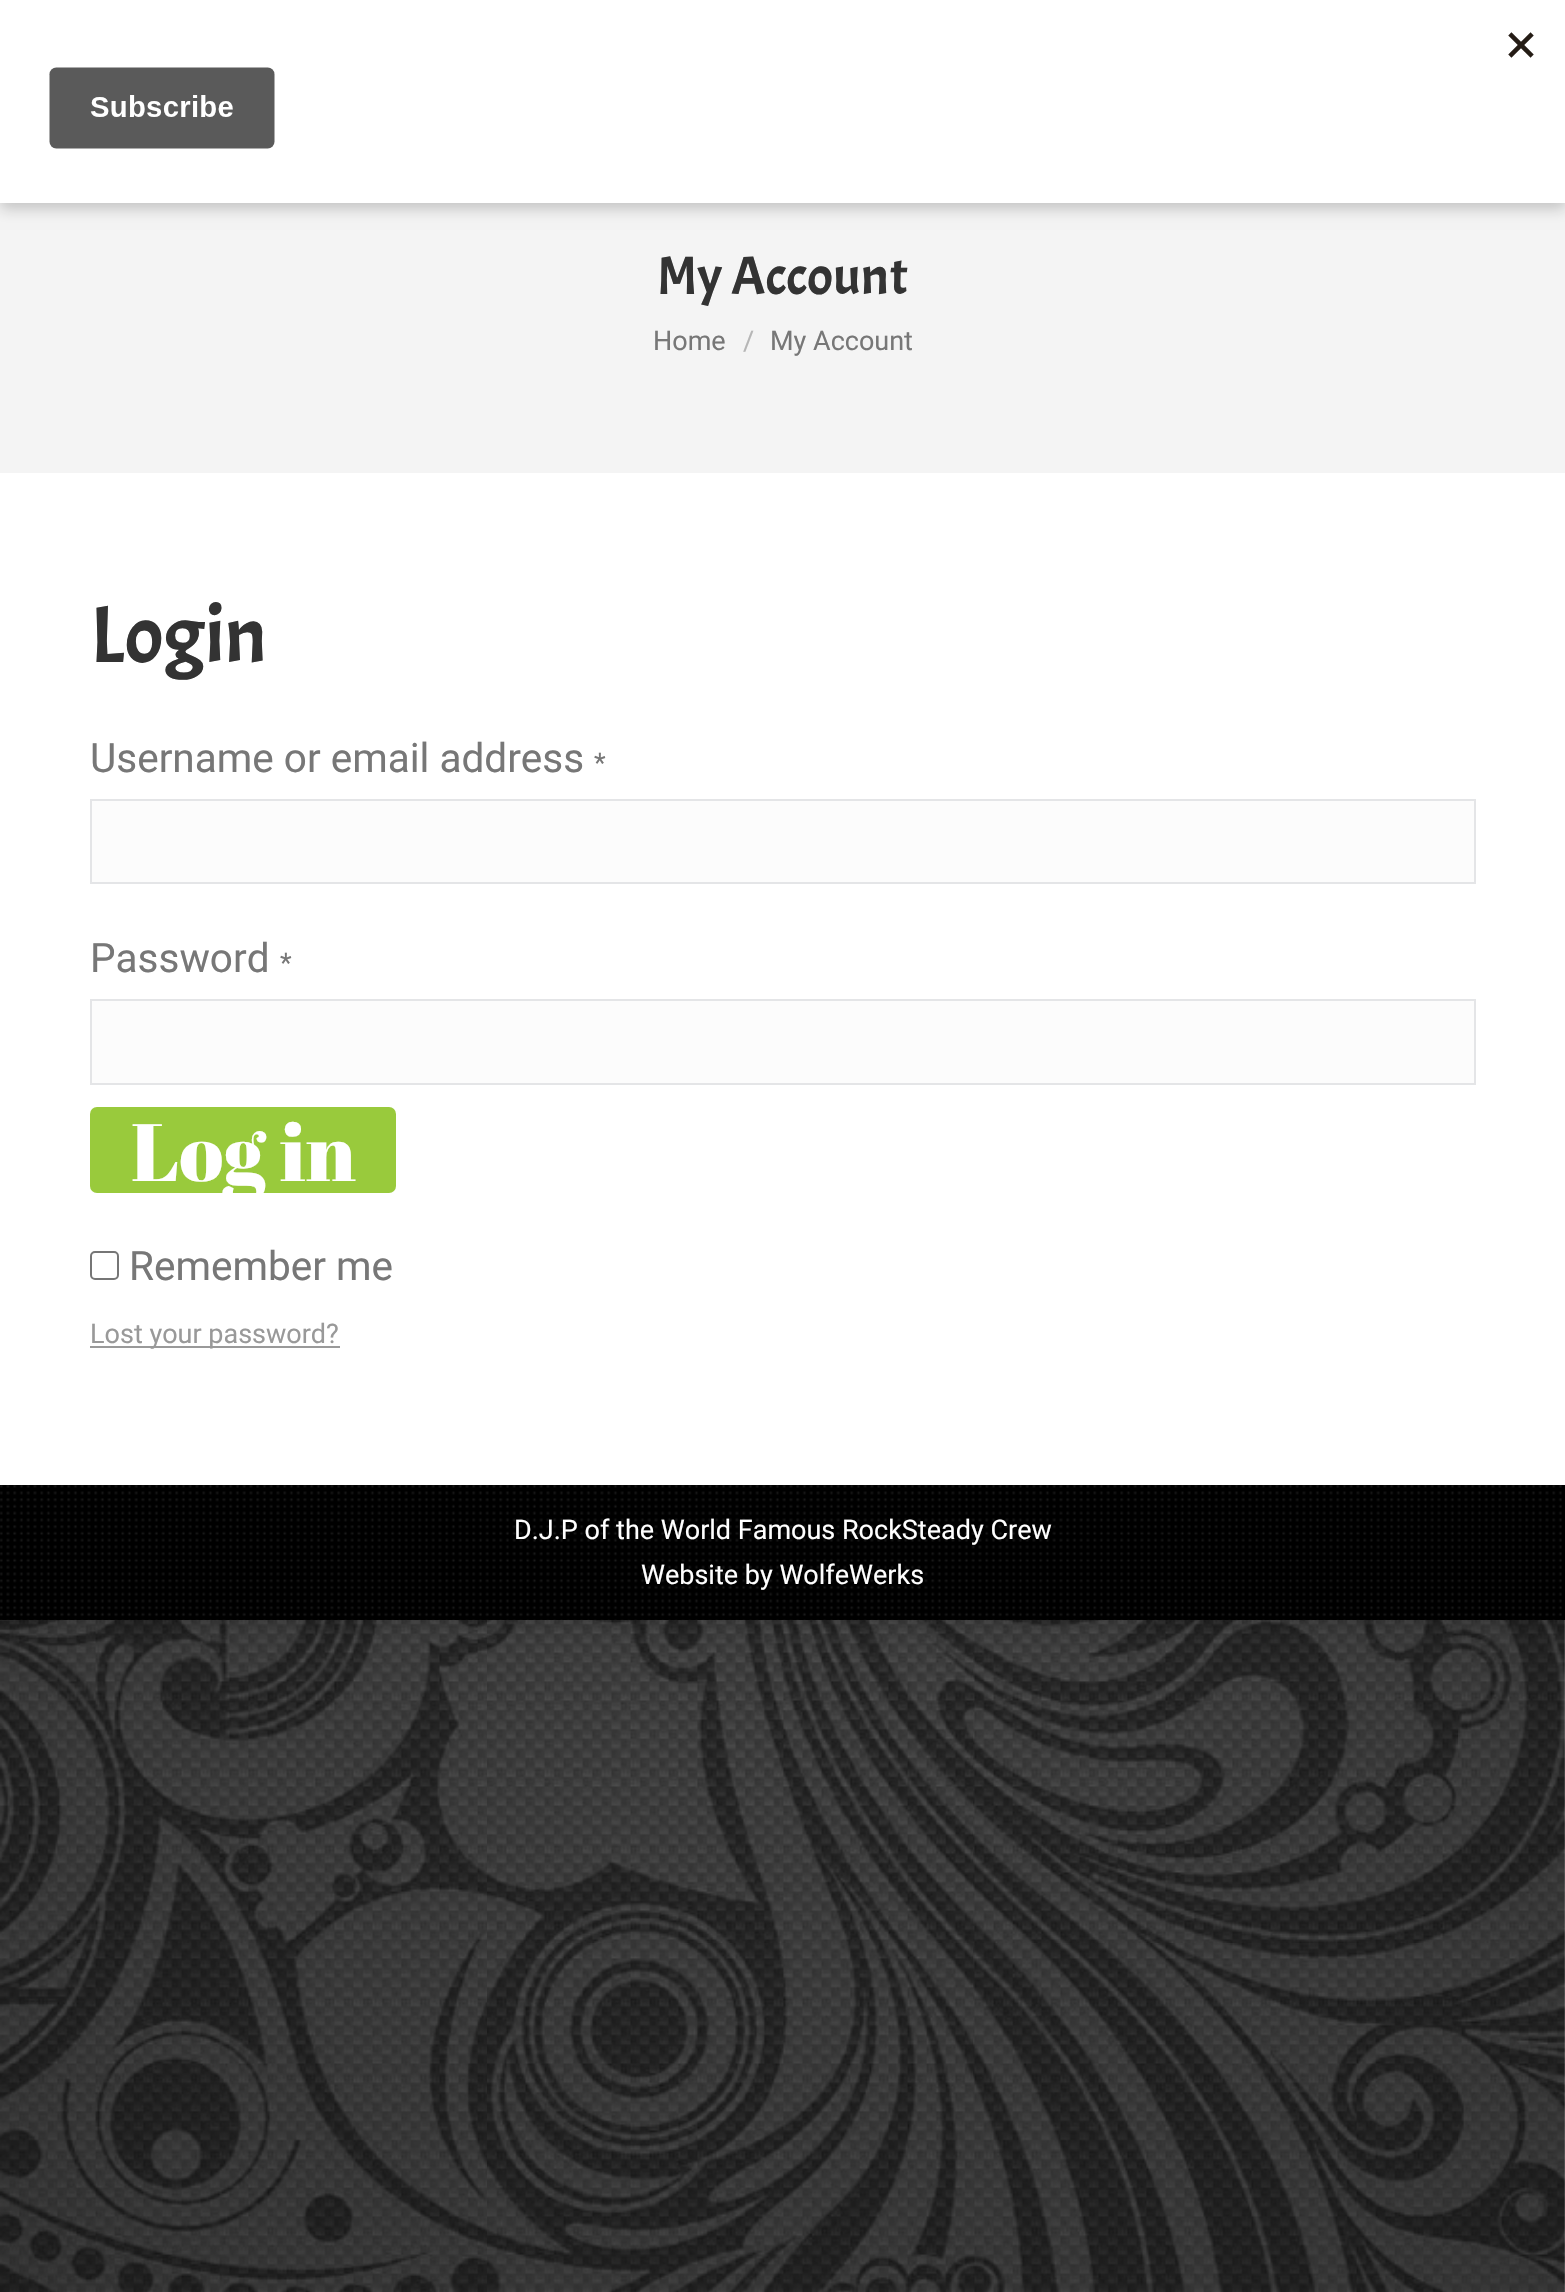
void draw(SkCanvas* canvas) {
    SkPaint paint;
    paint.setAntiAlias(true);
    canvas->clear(0xFFFFFFFF);
    canvas->drawImageRect(SkImages::DeferredFromEncodedData(SkData::MakeFromFileName("img1.png")), SkRect::MakeXYWH(0, 1620, 1565, 672), SkSamplingOptions());
    paint.setColor(0x26000000);
    paint.setMaskFilter(SkMaskFilter::MakeBlur(kNormal_SkBlurStyle, 13.5f));
    canvas->drawRect(SkRect::MakeXYWH(0, 0, 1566, 1620), paint);
    paint.setMaskFilter(nullptr);
    paint.setColor(0xFFF4F4F4);
    canvas->drawRect(SkRect::MakeXYWH(0, 203, 1565, 270), paint);
    paint.setColor(0x33000000);
    paint.setMaskFilter(SkMaskFilter::MakeBlur(kNormal_SkBlurStyle, 7));
    canvas->drawRect(SkRect::MakeXYWH(0, 7, 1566, 202), paint);
    paint.setMaskFilter(nullptr);
    paint.setColor(0xFFFFFFFF);
    canvas->drawRect(SkRect::MakeXYWH(0, 0, 1565, 203), paint);
    canvas->drawImageRect(SkImages::DeferredFromEncodedData(SkData::MakeFromFileName("img2.png")), SkRect::MakeXYWH(49, 32, 1485, 117), SkSamplingOptions());
    canvas->drawRect(SkRect::MakeXYWH(0, 473, 1565, 1012), paint);
    SkFont font1(fontMgr->matchFamilyStyle("Acme", SkFontStyle::Normal()), 54);
    font1.setSubpixel(true);
    paint.setColor(0xFF333333);
    canvas->drawString("My Account", 657, 294, font1, paint);
    SkFont font2(fontMgr->matchFamilyStyle("Roboto", SkFontStyle::Normal()), 27);
    font2.setSubpixel(true);
    paint.setColor(0xFF777777);
    canvas->drawString("Home", 653, 350, font2, paint);
    paint.setColor(0xFFB6B6B6);
    canvas->drawString("/", 743, 350, font2, paint);
    paint.setColor(0xFF777777);
    canvas->drawString("My Account", 770, 350, font2, paint);
    SkFont font3(fontMgr->matchFamilyStyle("Acme", SkFontStyle::Normal()), 81);
    font3.setSubpixel(true);
    paint.setColor(0xFF333333);
    canvas->drawString("Login", 90, 662, font3, paint);
    SkFont font4(fontMgr->matchFamilyStyle("Roboto", SkFontStyle::Normal()), 40.5f);
    font4.setSubpixel(true);
    paint.setColor(0xFF777777);
    canvas->drawString("Username or email address", 90, 772, font4, paint);
    canvas->drawString("*", 594, 772, font2, paint);
    paint.setColor(0xFFFCFCFC);
    canvas->drawRect(SkRect::MakeXYWH(91, 800, 1384, 83), paint);
    paint.setStyle(SkPaint::kStroke_Style);
    paint.setStrokeWidth(2);
    paint.setColor(0xFFE4E5E7);
    canvas->drawRect(SkRect::MakeXYWH(91, 800, 1384, 83), paint);
    paint.setStyle(SkPaint::kFill_Style);
    paint.setColor(0xFF777777);
    canvas->drawString("Password", 90, 972, font4, paint);
    canvas->drawString("*", 280, 972, font2, paint);
    paint.setColor(0xFFFCFCFC);
    canvas->drawRect(SkRect::MakeXYWH(91, 1000, 1384, 84), paint);
    paint.setStyle(SkPaint::kStroke_Style);
    paint.setColor(0xFFE4E5E7);
    canvas->drawRect(SkRect::MakeXYWH(91, 1000, 1384, 84), paint);
    paint.setStyle(SkPaint::kFill_Style);
    paint.setColor(0xFF99CA3C);
    canvas->drawRoundRect(SkRect::MakeXYWH(90, 1107, 306, 86), 7, 7, paint);
    SkFont font5(fontMgr->matchFamilyStyle("Abril Fatface", SkFontStyle::Normal()), 81);
    font5.setSubpixel(true);
    paint.setColor(0xFFFFFFFF);
    canvas->drawString("Log in", 131, 1181, font5, paint);
    paint.setStyle(SkPaint::kStroke_Style);
    paint.setColor(0xFF767676);
    canvas->drawRoundRect(SkRect::MakeXYWH(91, 1252, 27, 27), 4, 4, paint);
    paint.setStyle(SkPaint::kFill_Style);
    paint.setColor(0xFF777777);
    canvas->drawString("Remember me", 129, 1280, font4, paint);
    paint.setColor(0xFF999999);
    canvas->drawRect(SkRect::MakeXYWH(90, 1346, 250, 2), paint);
    canvas->drawString("Lost your password?", 90, 1343, font2, paint);
    paint.setColor(0xFF000000);
    canvas->drawRect(SkRect::MakeXYWH(1562, 1485, 3, 135), paint);
    canvas->drawImageRect(SkImages::DeferredFromEncodedData(SkData::MakeFromFileName("img3.png")), SkRect::MakeXYWH(0, 1485, 1562, 135), SkSamplingOptions());
    paint.setColor(0xFFFFFFFF);
    canvas->drawString("D.J.P of the World Famous RockSteady Crew", 514, 1539, font2, paint);
    canvas->drawString("Website by WolfeWerks", 641, 1584, font2, paint);
}
